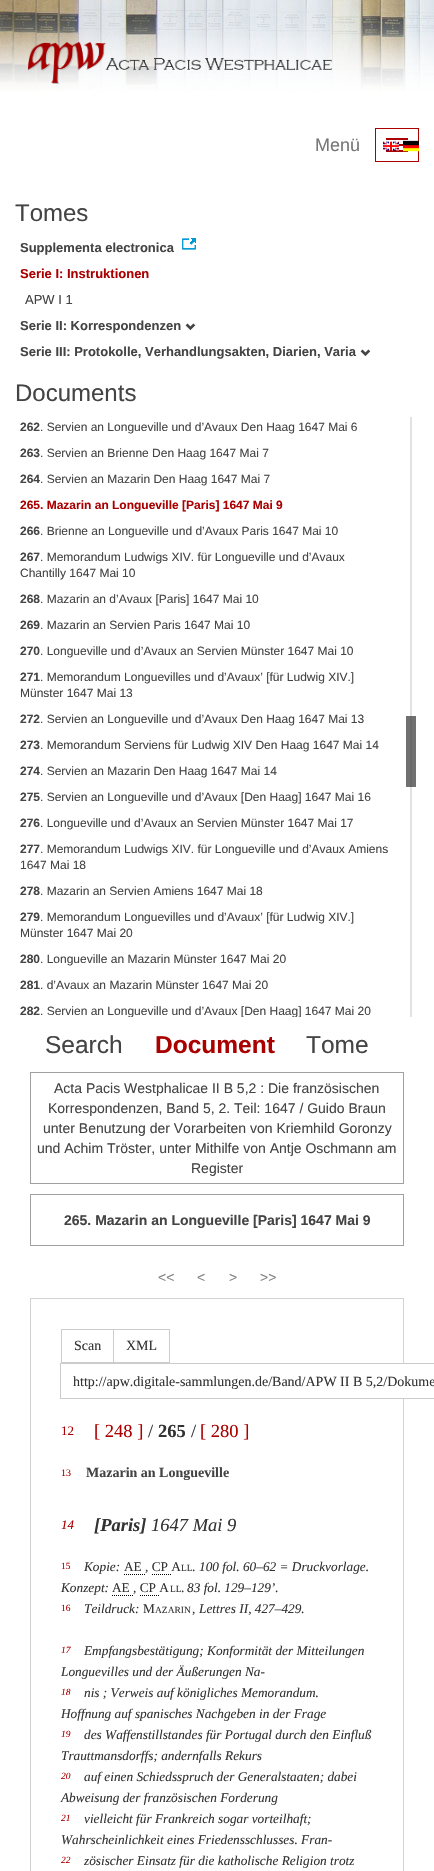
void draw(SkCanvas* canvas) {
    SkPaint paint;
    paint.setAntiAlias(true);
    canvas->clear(0xFFFFFFFF);
    paint.setColor(0xFF707070);
    canvas->drawRect(SkRect::MakeXYWH(406, 716, 10, 71), paint);
    canvas->drawImageRect(SkImages::DeferredFromEncodedData(SkData::MakeFromFileName("img1.png")), SkRect::MakeXYWH(0, 0, 434, 91), SkSamplingOptions());
    canvas->drawImageRect(SkImages::DeferredFromEncodedData(SkData::MakeFromFileName("img2.png")), SkRect::MakeXYWH(28, 42, 304, 42), SkSamplingOptions());
    SkFont font1(fontMgr->matchFamilyStyle("Liberation Sans", SkFontStyle::Normal()), 18);
    font1.setSubpixel(true);
    paint.setColor(0xFF777777);
    canvas->drawString("Menü", 315, 151, font1, paint);
    paint.setStyle(SkPaint::kStroke_Style);
    paint.setStrokeWidth(1);
    paint.setColor(0xFFAA0000);
    canvas->drawRect(SkRect::MakeXYWH(375.5f, 128.5f, 43, 33), paint);
    paint.setStyle(SkPaint::kFill_Style);
    canvas->drawRect(SkRect::MakeXYWH(386, 138, 22, 2), paint);
    canvas->drawRect(SkRect::MakeXYWH(399, 144, 9, 2), paint);
    canvas->drawRect(SkRect::MakeXYWH(386, 150, 22, 2), paint);
    canvas->drawImageRect(SkImages::DeferredFromEncodedData(SkData::MakeFromFileName("img3.png")), SkRect::MakeXYWH(383, 141, 16, 10), SkSamplingOptions());
    canvas->drawImageRect(SkImages::DeferredFromEncodedData(SkData::MakeFromFileName("img4.png")), SkRect::MakeXYWH(403, 140, 16, 12), SkSamplingOptions());
    SkFont font2(fontMgr->matchFamilyStyle("Liberation Sans", SkFontStyle::Normal()), 24);
    font2.setSubpixel(true);
    paint.setColor(0xFF444444);
    canvas->drawString("Tomes", 15, 221, font2, paint);
    SkFont font3(fontMgr->matchFamilyStyle("Liberation Sans", SkFontStyle::Bold()), 13);
    font3.setSubpixel(true);
    canvas->drawString("Supplementa electronica", 20, 252, font3, paint);
    canvas->drawImageRect(SkImages::DeferredFromEncodedData(SkData::MakeFromFileName("img5.png")), SkRect::MakeXYWH(182, 238, 14, 12), SkSamplingOptions());
    paint.setColor(0xFFAA0000);
    canvas->drawString("Serie I: Instruktionen", 20, 278, font3, paint);
    SkFont font4(fontMgr->matchFamilyStyle("Liberation Sans", SkFontStyle::Normal()), 13);
    font4.setSubpixel(true);
    paint.setColor(0xFF444444);
    canvas->drawString("APW I 1", 25, 304, font4, paint);
    canvas->drawString("Serie II: Korrespondenzen", 20, 330, font3, paint);
    canvas->drawImageRect(SkImages::DeferredFromEncodedData(SkData::MakeFromFileName("img6.png")), SkRect::MakeXYWH(185, 323, 11, 8), SkSamplingOptions());
    canvas->drawString("Serie III: Protokolle, Verhandlungsakten, Diarien, Varia", 20, 356, font3, paint);
    canvas->drawImageRect(SkImages::DeferredFromEncodedData(SkData::MakeFromFileName("img6.png")), SkRect::MakeXYWH(360, 349, 11, 8), SkSamplingOptions());
    canvas->drawString("Documents", 15, 401, font2, paint);
    SkFont font5(fontMgr->matchFamilyStyle("Liberation Sans", SkFontStyle::Bold()), 12);
    font5.setSubpixel(true);
    canvas->drawString("262", 20, 431, font5, paint);
    SkFont font6(fontMgr->matchFamilyStyle("Liberation Sans", SkFontStyle::Normal()), 12);
    font6.setSubpixel(true);
    canvas->drawString(". Servien an Longueville und d’Avaux Den Haag 1647 Mai 6", 40, 431, font6, paint);
    canvas->drawString("263", 20, 457, font5, paint);
    canvas->drawString(". Servien an Brienne Den Haag 1647 Mai 7", 40, 457, font6, paint);
    canvas->drawString("264", 20, 483, font5, paint);
    canvas->drawString(". Servien an Mazarin Den Haag 1647 Mai 7", 40, 483, font6, paint);
    paint.setColor(0xFFAA0000);
    canvas->drawString("265. Mazarin an Longueville [Paris] 1647 Mai 9", 20, 509, font5, paint);
    paint.setColor(0xFF444444);
    canvas->drawString("266", 20, 535, font5, paint);
    canvas->drawString(". Brienne an Longueville und d’Avaux Paris 1647 Mai 10", 40, 535, font6, paint);
    canvas->drawString("267", 20, 561, font5, paint);
    canvas->drawString(". Memorandum Ludwigs XIV. für Longueville und d’Avaux", 40, 561, font6, paint);
    canvas->drawString("Chantilly 1647 Mai 10", 20, 577, font6, paint);
    canvas->drawString("268", 20, 603, font5, paint);
    canvas->drawString(". Mazarin an d’Avaux [Paris] 1647 Mai 10", 40, 603, font6, paint);
    canvas->drawString("269", 20, 629, font5, paint);
    canvas->drawString(". Mazarin an Servien Paris 1647 Mai 10", 40, 629, font6, paint);
    canvas->drawString("270", 20, 655, font5, paint);
    canvas->drawString(". Longueville und d’Avaux an Servien Münster 1647 Mai 10", 40, 655, font6, paint);
    canvas->drawString("271", 20, 681, font5, paint);
    canvas->drawString(". Memorandum Longuevilles und d’Avaux’ [für Ludwig XIV.]", 40, 681, font6, paint);
    canvas->drawString("Münster 1647 Mai 13", 20, 697, font6, paint);
    canvas->drawString("272", 20, 723, font5, paint);
    canvas->drawString(". Servien an Longueville und d’Avaux Den Haag 1647 Mai 13", 40, 723, font6, paint);
    canvas->drawString("273", 20, 749, font5, paint);
    canvas->drawString(". Memorandum Serviens für Ludwig XIV Den Haag 1647 Mai 14", 40, 749, font6, paint);
    canvas->drawString("274", 20, 775, font5, paint);
    canvas->drawString(". Servien an Mazarin Den Haag 1647 Mai 14", 40, 775, font6, paint);
    canvas->drawString("275", 20, 801, font5, paint);
    canvas->drawString(". Servien an Longueville und d’Avaux [Den Haag] 1647 Mai 16", 40, 801, font6, paint);
    canvas->drawString("276", 20, 827, font5, paint);
    canvas->drawString(". Longueville und d’Avaux an Servien Münster 1647 Mai 17", 40, 827, font6, paint);
    canvas->drawString("277", 20, 853, font5, paint);
    canvas->drawString(". Memorandum Ludwigs XIV. für Longueville und d’Avaux Amiens", 40, 853, font6, paint);
    canvas->drawString("1647 Mai 18", 20, 869, font6, paint);
    canvas->drawString("278", 20, 895, font5, paint);
    canvas->drawString(". Mazarin an Servien Amiens 1647 Mai 18", 40, 895, font6, paint);
    canvas->drawString("279", 20, 921, font5, paint);
    canvas->drawString(". Memorandum Longuevilles und d’Avaux’ [für Ludwig XIV.]", 40, 921, font6, paint);
    canvas->drawString("Münster 1647 Mai 20", 20, 937, font6, paint);
    canvas->drawString("280", 20, 963, font5, paint);
    canvas->drawString(". Longueville an Mazarin Münster 1647 Mai 20", 40, 963, font6, paint);
    canvas->drawString("281", 20, 989, font5, paint);
    canvas->drawString(". d’Avaux an Mazarin Münster 1647 Mai 20", 40, 989, font6, paint);
    canvas->drawString("282", 20, 1015, font5, paint);
    canvas->save();
    canvas->clipRect(SkRect::MakeXYWH(20, 417, 369, 600));
    canvas->drawString(". Servien an Longueville und d’Avaux [Den Haag] 1647 Mai 20", 40, 1015, font6, paint);
    canvas->restore();
    paint.setColor(0xFFE2E2E2);
    canvas->drawRect(SkRect::MakeXYWH(410, 417, 2, 600), paint);
    paint.setColor(0xFF696969);
    canvas->drawRect(SkRect::MakeXYWH(410, 716, 2, 71), paint);
    SkFont font7(fontMgr->matchFamilyStyle("Liberation Sans", SkFontStyle::Normal()), 24.5f);
    font7.setSubpixel(true);
    paint.setColor(0xFF444444);
    canvas->drawString("Search", 45, 1053, font7, paint);
    SkFont font8(fontMgr->matchFamilyStyle("Liberation Sans", SkFontStyle::Bold()), 24.5f);
    font8.setSubpixel(true);
    paint.setColor(0xFFAA0000);
    canvas->drawString("Document", 155, 1053, font8, paint);
    paint.setColor(0xFF444444);
    canvas->drawString("Tome", 306, 1053, font7, paint);
    paint.setStyle(SkPaint::kStroke_Style);
    paint.setColor(0xFFA0A0A0);
    canvas->drawRect(SkRect::MakeXYWH(30.5f, 1072.5f, 373, 111), paint);
    SkFont font9(fontMgr->matchFamilyStyle("Liberation Sans", SkFontStyle::Normal()), 14);
    font9.setSubpixel(true);
    paint.setStyle(SkPaint::kFill_Style);
    paint.setColor(0xFF444444);
    canvas->drawString("Acta Pacis Westphalicae II B 5,2 : Die französischen", 54, 1093, font9, paint);
    canvas->drawString("Korrespondenzen, Band 5, 2. Teil: 1647 / Guido Braun", 48, 1113, font9, paint);
    canvas->drawString("unter Benutzung der Vorarbeiten von Kriemhild Goronzy", 43, 1133, font9, paint);
    canvas->drawString("und Achim Tröster, unter Mithilfe von Antje Oschmann am", 37, 1153, font9, paint);
    canvas->drawString("Register", 191, 1173, font9, paint);
    paint.setStyle(SkPaint::kStroke_Style);
    paint.setColor(0xFFA0A0A0);
    canvas->drawRect(SkRect::MakeXYWH(30.5f, 1194.5f, 373, 51), paint);
    SkFont font10(fontMgr->matchFamilyStyle("Liberation Sans", SkFontStyle::Bold()), 14);
    font10.setSubpixel(true);
    paint.setStyle(SkPaint::kFill_Style);
    paint.setColor(0xFF444444);
    canvas->drawString("265. Mazarin an Longueville [Paris] 1647 Mai 9", 64, 1225, font10, paint);
    paint.setColor(0xFF808080);
    canvas->drawString("<<", 158, 1282, font9, paint);
    canvas->drawString("<", 197, 1282, font9, paint);
    canvas->drawString(">", 229, 1282, font9, paint);
    canvas->drawString(">>", 260, 1282, font9, paint);
    paint.setStyle(SkPaint::kStroke_Style);
    paint.setColor(0xFFD3D3D3);
    canvas->drawRect(SkRect::MakeXYWH(30.5f, 1298.5f, 373, 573), paint);
    paint.setColor(0xFFCCCCCC);
    canvas->drawRect(SkRect::MakeXYWH(61.5f, 1329.5f, 52, 33), paint);
    SkFont font11(fontMgr->matchFamilyStyle("Liberation Serif", SkFontStyle::Normal()), 14);
    font11.setSubpixel(true);
    paint.setStyle(SkPaint::kFill_Style);
    paint.setColor(0xFF333333);
    canvas->drawString("Scan", 74, 1350, font11, paint);
    paint.setStyle(SkPaint::kStroke_Style);
    paint.setColor(0xFFCCCCCC);
    canvas->drawRect(SkRect::MakeXYWH(113.5f, 1329.5f, 56, 33), paint);
    paint.setStyle(SkPaint::kFill_Style);
    paint.setColor(0xFF333333);
    canvas->drawString("XML", 126, 1350, font11, paint);
    paint.setColor(0xFFFFFFFF);
    canvas->drawRect(SkRect::MakeXYWH(403, 1364, 1, 34), paint);
    paint.setStyle(SkPaint::kStroke_Style);
    paint.setColor(0xFFCCCCCC);
    canvas->drawRect(SkRect::MakeXYWH(60.5f, 1363.5f, 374, 35), paint);
    paint.setStyle(SkPaint::kFill_Style);
    paint.setColor(0xFF333333);
    canvas->drawString("http://apw.digitale-sammlungen.de/Band/APW II B 5,2/Dokume", 73, 1386, font11, paint);
    SkFont font12(fontMgr->matchFamilyStyle("Liberation Serif", SkFontStyle::Normal()), 13);
    font12.setSubpixel(true);
    paint.setColor(0xFFAA0000);
    canvas->drawString("12", 61, 1435, font12, paint);
    SkFont font13(fontMgr->matchFamilyStyle("Liberation Serif", SkFontStyle::Normal()), 18.5f);
    font13.setSubpixel(true);
    canvas->drawString("[ 248 ]", 94, 1437, font13, paint);
    paint.setColor(0xFF333333);
    canvas->drawString("/", 148, 1437, font13, paint);
    SkFont font14(fontMgr->matchFamilyStyle("Liberation Serif", SkFontStyle::Bold()), 18.5f);
    font14.setSubpixel(true);
    canvas->drawString("265", 158, 1437, font14, paint);
    canvas->drawString("/", 191, 1437, font13, paint);
    paint.setColor(0xFFAA0000);
    canvas->drawString("[ 280 ]", 200, 1437, font13, paint);
    SkFont font15(fontMgr->matchFamilyStyle("Liberation Serif", SkFontStyle::Normal()), 10);
    font15.setSubpixel(true);
    canvas->drawString("13", 61, 1476, font15, paint);
    SkFont font16(fontMgr->matchFamilyStyle("Liberation Serif", SkFontStyle::Bold()), 14);
    font16.setSubpixel(true);
    paint.setColor(0xFF444444);
    canvas->drawString("Mazarin an Longueville", 86, 1477, font16, paint);
    SkFont font17(fontMgr->matchFamilyStyle("Liberation Serif", SkFontStyle::Italic()), 13);
    font17.setSubpixel(true);
    paint.setColor(0xFFAA0000);
    canvas->drawString("14", 61, 1529, font17, paint);
    SkFont font18(fontMgr->matchFamilyStyle("Liberation Serif", SkFontStyle::BoldItalic()), 18.5f);
    font18.setSubpixel(true);
    paint.setColor(0xFF333333);
    canvas->drawString("[Paris]", 94, 1531, font18, paint);
    SkFont font19(fontMgr->matchFamilyStyle("Liberation Serif", SkFontStyle::Italic()), 18.5f);
    font19.setSubpixel(true);
    canvas->drawString("1647 Mai 9", 151, 1531, font19, paint);
    SkFont font20(fontMgr->matchFamilyStyle("Liberation Serif", SkFontStyle::Normal()), 9.5f);
    font20.setSubpixel(true);
    paint.setColor(0xFFAA0000);
    canvas->drawString("15", 61, 1569, font20, paint);
    SkFont font21(fontMgr->matchFamilyStyle("Liberation Serif", SkFontStyle::Italic()), 13.3f);
    font21.setSubpixel(true);
    paint.setColor(0xFF333333);
    canvas->drawString("Kopie:", 84, 1571, font21, paint);
    SkFont font22(fontMgr->matchFamilyStyle("Liberation Serif", SkFontStyle::Normal()), 13.3f);
    font22.setSubpixel(true);
    canvas->drawString("AE , CP A", 124, 1571, font22, paint);
    paint.setStyle(SkPaint::kStroke_Style);
    paint.setColor(0xFF000000);
    paint.setPathEffect(SkDashPathEffect::Make({{1, 1}}, 0));
    canvas->drawPath(SkPathBuilder().moveTo(124, 1574.5f).lineTo(145, 1574.5f).detach(), paint);
    paint.setPathEffect(nullptr);
    paint.setStyle(SkPaint::kFill_Style);
    paint.setColor(0xFF333333);
    canvas->drawString("LL", 181, 1571, font20, paint);
    canvas->drawString(".", 192, 1571, font22, paint);
    canvas->drawString("100 fol. 60–62 = Druckvorlage.", 199, 1571, font21, paint);
    paint.setStyle(SkPaint::kStroke_Style);
    paint.setColor(0xFF000000);
    paint.setPathEffect(SkDashPathEffect::Make({{1, 1}}, 0));
    canvas->drawPath(SkPathBuilder().moveTo(152, 1574.5f).lineTo(171, 1574.5f).detach(), paint);
    paint.setPathEffect(nullptr);
    paint.setStyle(SkPaint::kFill_Style);
    paint.setColor(0xFF333333);
    canvas->drawString("Konzept:", 61, 1592, font21, paint);
    canvas->drawString("AE , CP A", 112, 1592, font22, paint);
    paint.setStyle(SkPaint::kStroke_Style);
    paint.setColor(0xFF000000);
    paint.setPathEffect(SkDashPathEffect::Make({{1, 1}}, 0));
    canvas->drawPath(SkPathBuilder().moveTo(112, 1595.5f).lineTo(134, 1595.5f).detach(), paint);
    paint.setPathEffect(nullptr);
    paint.setStyle(SkPaint::kFill_Style);
    paint.setColor(0xFF333333);
    canvas->drawString("LL", 170, 1592, font20, paint);
    canvas->drawString(".", 181, 1592, font22, paint);
    canvas->drawString("83 fol. 129–129’.", 187, 1592, font21, paint);
    paint.setStyle(SkPaint::kStroke_Style);
    paint.setColor(0xFF000000);
    paint.setPathEffect(SkDashPathEffect::Make({{1, 1}}, 0));
    canvas->drawPath(SkPathBuilder().moveTo(140, 1595.5f).lineTo(160, 1595.5f).detach(), paint);
    paint.setPathEffect(nullptr);
    paint.setStyle(SkPaint::kFill_Style);
    paint.setColor(0xFFAA0000);
    canvas->drawString("16", 61, 1611, font20, paint);
    paint.setColor(0xFF333333);
    canvas->drawString("Teildruck:", 84, 1613, font21, paint);
    canvas->drawString("M", 143, 1613, font22, paint);
    canvas->drawString("AZARIN", 155, 1613, font20, paint);
    canvas->drawString("Lettres II, 427–429.", 199, 1613, font21, paint);
    canvas->drawString(",", 192, 1613, font22, paint);
    SkFont font23(fontMgr->matchFamilyStyle("Liberation Serif", SkFontStyle::Italic()), 9.5f);
    font23.setSubpixel(true);
    paint.setColor(0xFFAA0000);
    canvas->drawString("17", 61, 1653, font23, paint);
    paint.setColor(0xFF333333);
    canvas->drawString("Empfangsbestätigung; Konformität der Mitteilungen", 84, 1655, font21, paint);
    canvas->drawString("Longuevilles und der Äußerungen Na-", 61, 1676, font21, paint);
    paint.setColor(0xFFAA0000);
    canvas->drawString("18", 61, 1695, font23, paint);
    paint.setColor(0xFF333333);
    canvas->drawString("nis ; Verweis auf königliches Memorandum.", 84, 1697, font21, paint);
    canvas->drawString("Hoffnung auf spanisches Nachgeben in der Frage", 61, 1718, font21, paint);
    paint.setColor(0xFFAA0000);
    canvas->drawString("19", 61, 1737, font23, paint);
    paint.setColor(0xFF333333);
    canvas->drawString("des Waffenstillstandes für Portugal durch den Einfluß", 84, 1739, font21, paint);
    canvas->drawString("Trauttmansdorffs; andernfalls Rekurs", 61, 1760, font21, paint);
    paint.setColor(0xFFAA0000);
    canvas->drawString("20", 61, 1779, font23, paint);
    paint.setColor(0xFF333333);
    canvas->drawString("auf einen Schiedsspruch der Generalstaaten; dabei", 84, 1781, font21, paint);
    canvas->drawString("Abweisung der französischen Forderung", 61, 1802, font21, paint);
    paint.setColor(0xFFAA0000);
    canvas->drawString("21", 61, 1821, font23, paint);
    paint.setColor(0xFF333333);
    canvas->drawString("vielleicht für Frankreich sogar vorteilhaft;", 84, 1823, font21, paint);
    canvas->drawString("Wahrscheinlichkeit eines Friedensschlusses. Fran-", 61, 1844, font21, paint);
    paint.setColor(0xFFAA0000);
    canvas->drawString("22", 61, 1863, font23, paint);
    paint.setColor(0xFF333333);
    canvas->drawString("zösischer Einsatz für die katholische Religion trotz", 84, 1865, font21, paint);
}
